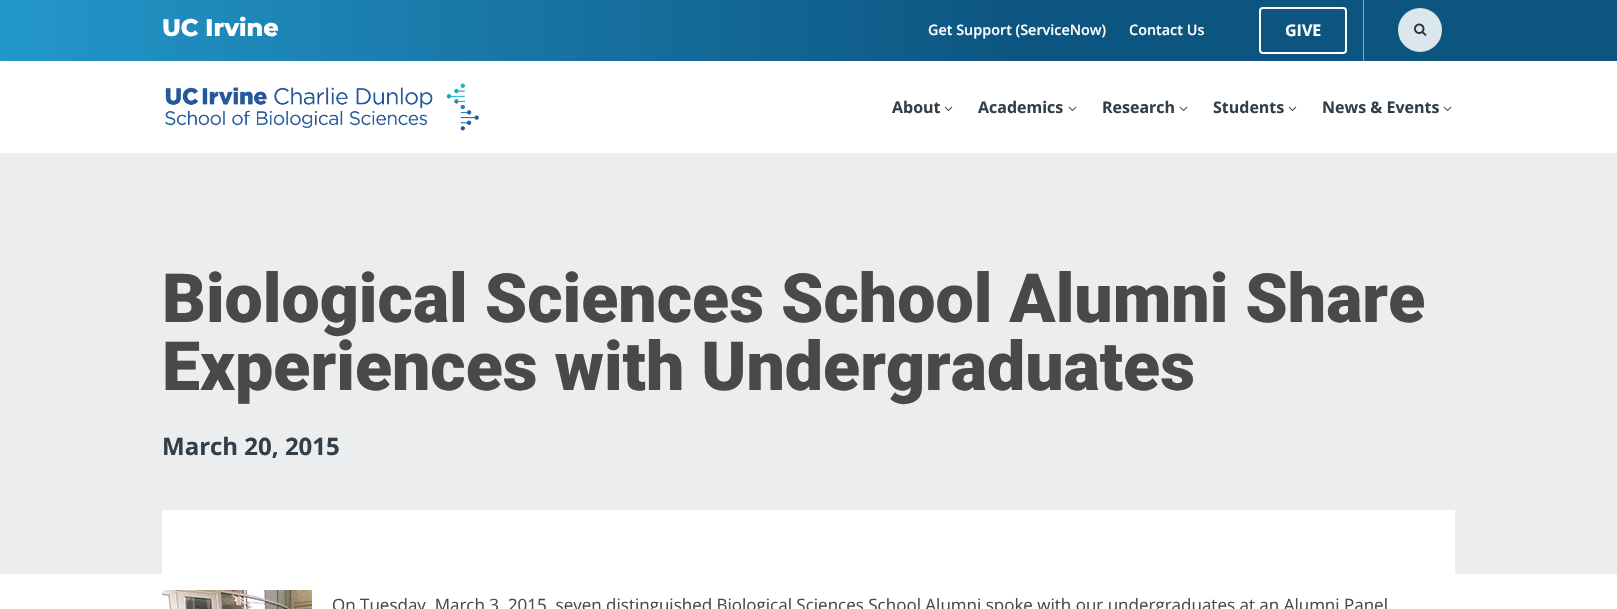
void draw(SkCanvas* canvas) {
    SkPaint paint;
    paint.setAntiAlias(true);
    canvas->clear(0xFFFFFFFF);
    {
        const SkColor colors[] = {0xFF2397CA, 0xFF0D5581};
        const float stops[] = {0, 0.63f};
        const SkPoint ends[] = {{0, 31}, {1617, 30}};
        paint.setShader(SkGradientShader::MakeLinear(ends, colors, stops, 2, SkTileMode::kClamp));
        paint.setAlpha(255);
    }
    canvas->drawRect(SkRect::MakeXYWH(0, 0, 1617, 61), paint);
    SkFont font1(fontMgr->matchFamilyStyle("Montserrat", SkFontStyle(800, SkFontStyle::kNormal_Width, SkFontStyle::kUpright_Slant)), 24);
    font1.setSubpixel(true);
    paint.setShader(nullptr);
    paint.setColor(0xFFFFFFFF);
    canvas->drawString("UC Irvine", 162, 36, font1, paint);
    SkFont font2(fontMgr->matchFamilyStyle("Open Sans", SkFontStyle(600, SkFontStyle::kNormal_Width, SkFontStyle::kUpright_Slant)), 14.4f);
    font2.setSubpixel(true);
    canvas->drawString("Get Support (ServiceNow)", 928, 35, font2, paint);
    canvas->drawString("Contact Us", 1129, 35, font2, paint);
    paint.setColor(0xFFA2A2A2);
    canvas->drawRect(SkRect::MakeXYWH(1363, 0, 1, 61), paint);
    paint.setStyle(SkPaint::kStroke_Style);
    paint.setStrokeWidth(2);
    paint.setColor(0xFFFFFFFF);
    canvas->drawRoundRect(SkRect::MakeXYWH(1260, 8, 86, 45), 3, 3, paint);
    SkFont font3(fontMgr->matchFamilyStyle("Open Sans", SkFontStyle::Bold()), 16);
    font3.setSubpixel(true);
    paint.setStyle(SkPaint::kFill_Style);
    canvas->drawString("GIVE", 1285, 36, font3, paint);
    paint.setColor(0xFFDBE7EC);
    canvas->drawCircle(1420, 30, 22, paint);
    canvas->drawImageRect(SkImages::DeferredFromEncodedData(SkData::MakeFromFileName("img1.png")), SkRect::MakeXYWH(1414, 23, 13, 13), SkSamplingOptions());
    canvas->drawImageRect(SkImages::DeferredFromEncodedData(SkData::MakeFromFileName("img2.png")), SkRect::MakeXYWH(165, 83, 314, 48), SkSamplingOptions());
    paint.setColor(0xFF333F48);
    canvas->drawString("About", 892, 113, font3, paint);
    canvas->drawImageRect(SkImages::DeferredFromEncodedData(SkData::MakeFromFileName("img3.png")), SkRect::MakeXYWH(944, 106, 9, 5), SkSamplingOptions());
    canvas->drawString("Academics", 978, 113, font3, paint);
    canvas->drawImageRect(SkImages::DeferredFromEncodedData(SkData::MakeFromFileName("img3.png")), SkRect::MakeXYWH(1068, 106, 9, 5), SkSamplingOptions());
    canvas->drawString("Research", 1102, 113, font3, paint);
    canvas->drawImageRect(SkImages::DeferredFromEncodedData(SkData::MakeFromFileName("img3.png")), SkRect::MakeXYWH(1179, 106, 9, 5), SkSamplingOptions());
    canvas->drawString("Students", 1213, 113, font3, paint);
    canvas->drawImageRect(SkImages::DeferredFromEncodedData(SkData::MakeFromFileName("img3.png")), SkRect::MakeXYWH(1288, 106, 9, 5), SkSamplingOptions());
    canvas->drawString("News & Events", 1322, 113, font3, paint);
    canvas->drawImageRect(SkImages::DeferredFromEncodedData(SkData::MakeFromFileName("img3.png")), SkRect::MakeXYWH(1443, 106, 9, 5), SkSamplingOptions());
    paint.setColor(0xFFEBEDEE);
    canvas->drawRect(SkRect::MakeXYWH(0, 153, 1617, 421), paint);
    SkFont font4(fontMgr->matchFamilyStyle("Roboto", SkFontStyle(900, SkFontStyle::kNormal_Width, SkFontStyle::kUpright_Slant)), 68);
    font4.setSubpixel(true);
    paint.setColor(0xFF494949);
    canvas->drawString("Biological Sciences School Alumni Share", 162, 322, font4, paint);
    canvas->drawString("Experiences with Undergraduates", 162, 390, font4, paint);
    SkFont font5(fontMgr->matchFamilyStyle("Open Sans", SkFontStyle::Bold()), 24);
    font5.setSubpixel(true);
    paint.setColor(0xFF333F48);
    canvas->drawString("March 20, 2015", 162, 455, font5, paint);
    paint.setColor(0xFFFFFFFF);
    canvas->drawRect(SkRect::MakeXYWH(162, 510, 1293, 64), paint);
    canvas->drawImageRect(SkImages::DeferredFromEncodedData(SkData::MakeFromFileName("img4.png")), SkRect::MakeXYWH(162, 590, 152, 19), SkSamplingOptions());
    SkFont font6(fontMgr->matchFamilyStyle("Open Sans", SkFontStyle::Normal()), 17);
    font6.setSubpixel(true);
    paint.setColor(0xFF494949);
    canvas->drawString("On Tuesday, March 3, 2015, seven distinguished Biological Sciences School Alumni spoke with our undergraduates at an Alumni Panel", 332, 611, font6, paint);
}
